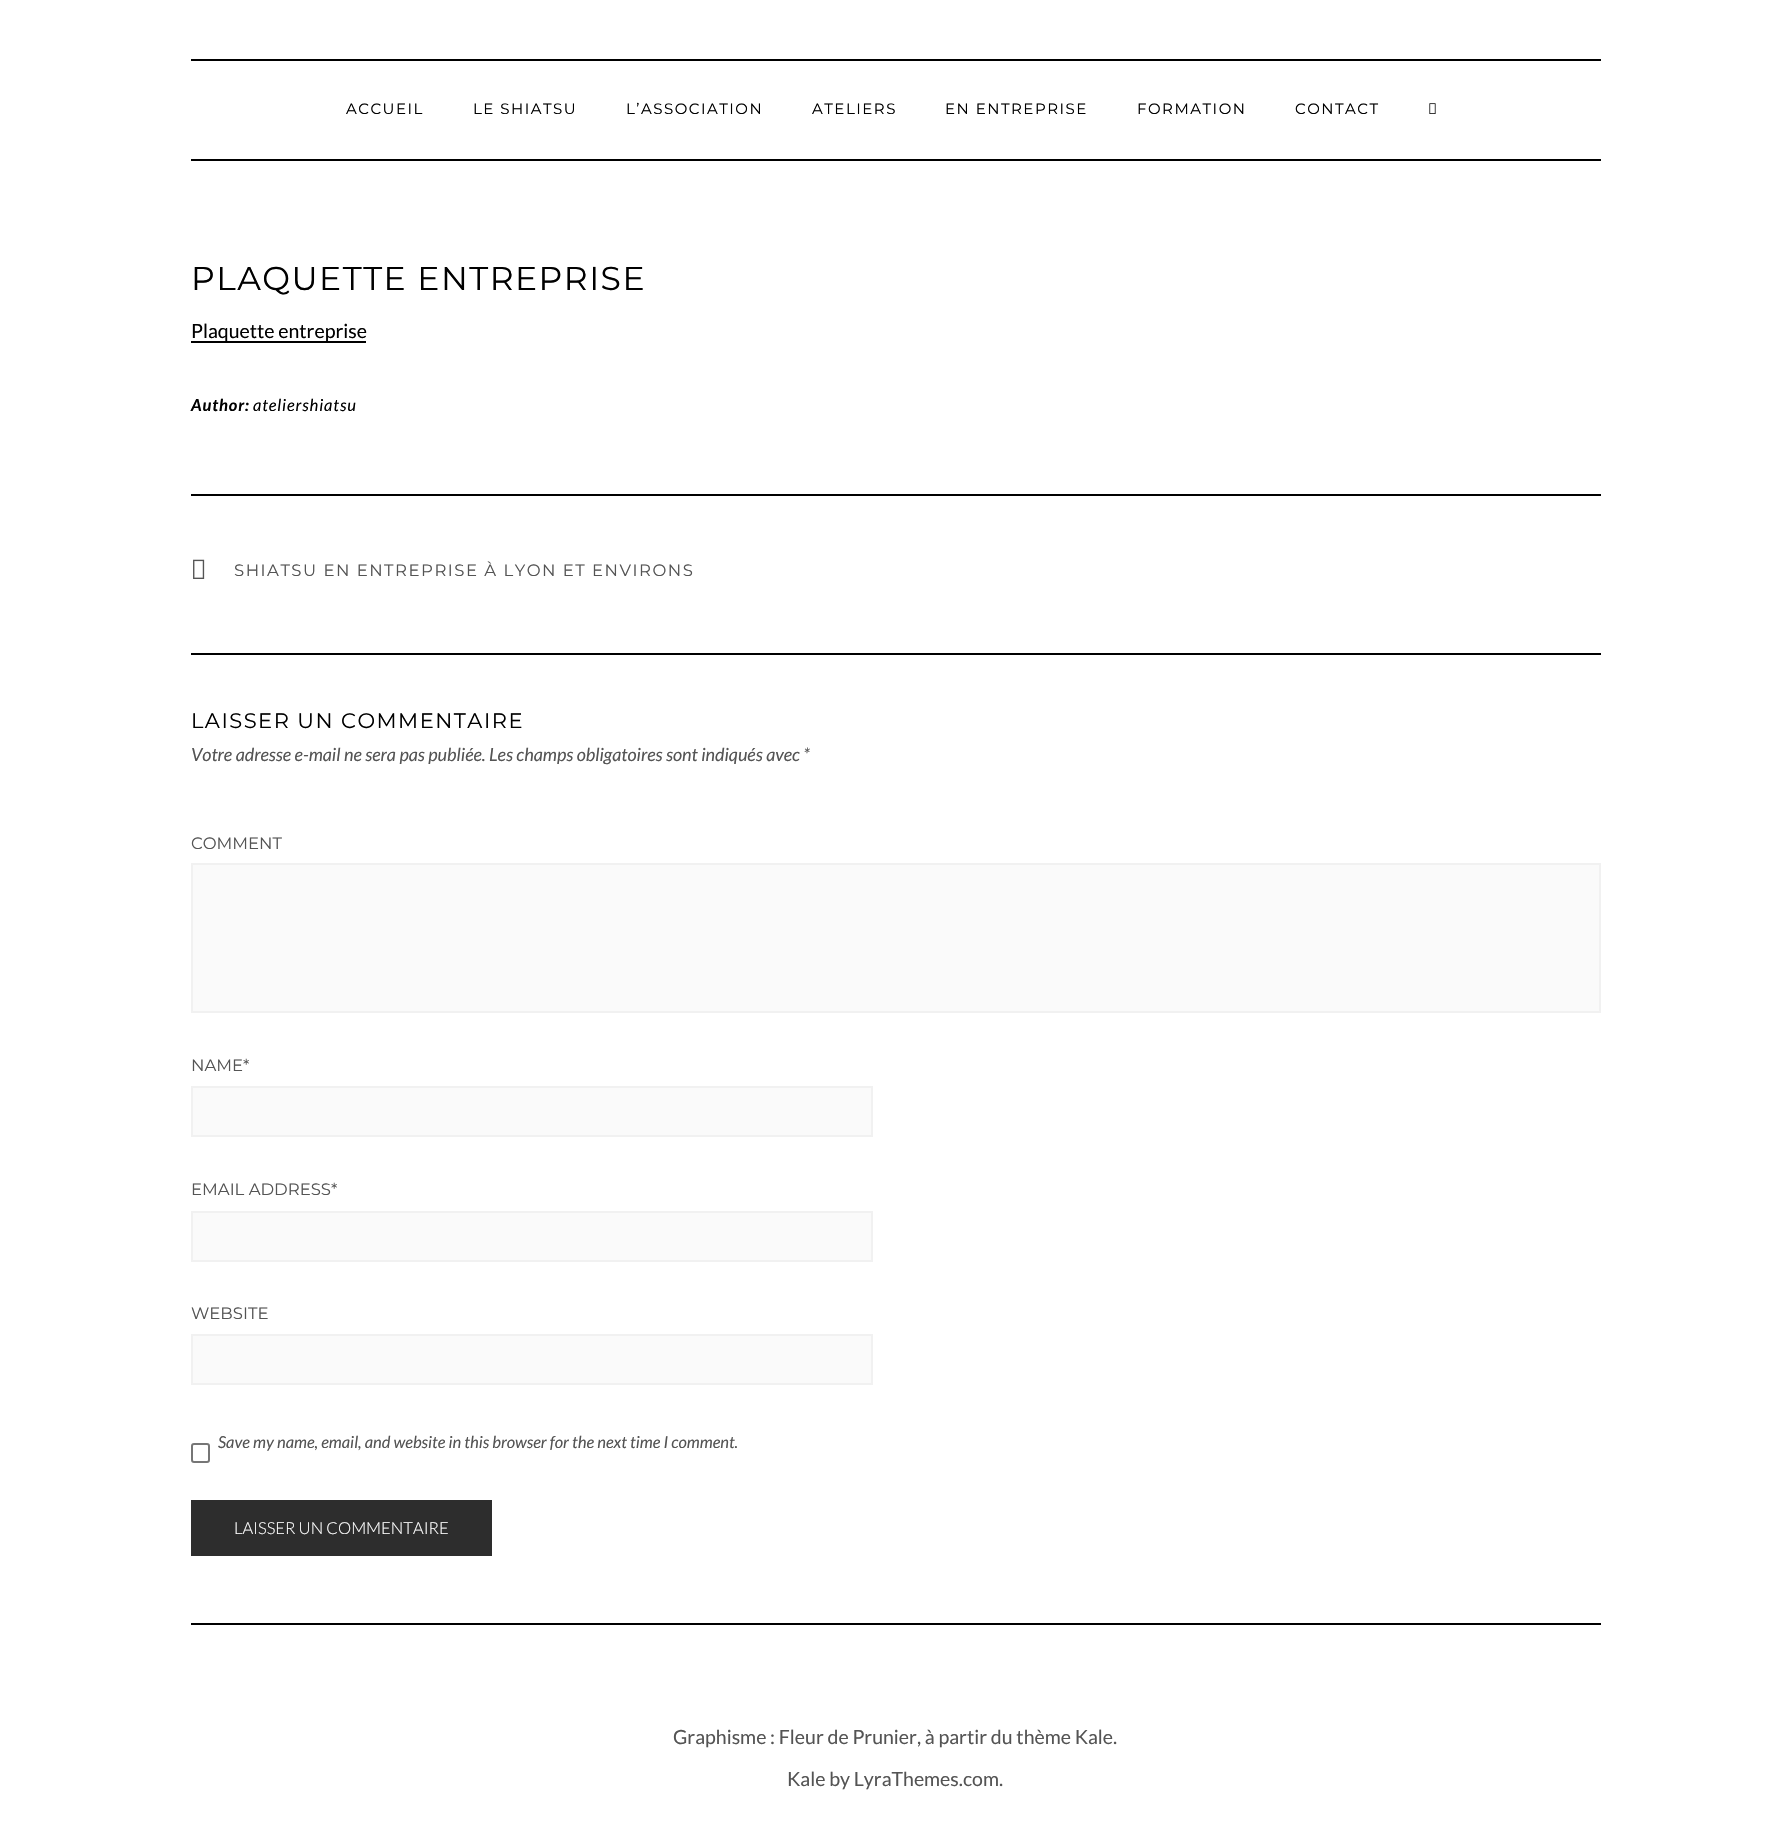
void draw(SkCanvas* canvas) {
    SkPaint paint;
    paint.setAntiAlias(true);
    auto spacedText = [&](const char* s, float x, float y, const SkFont& font, const SkPaint& ink, float letter, float word) {
        std::vector<SkGlyphID> glyphs(font.countText(s, strlen(s), SkTextEncoding::kUTF8));
        std::vector<float> xs(glyphs.size());
        font.textToGlyphs(s, strlen(s), SkTextEncoding::kUTF8, glyphs);
        font.getXPos(glyphs, xs, x);
        float extra = 0;
        for (size_t i = 0; i < glyphs.size(); i++) {
            xs[i] += extra;
            extra += letter + word * (glyphs[i] == font.unicharToGlyph(' '));
        }
        canvas->drawTextBlob(SkTextBlob::MakeFromPosHGlyphs(glyphs, xs, y, font), 0, 0, ink);
    };
    canvas->clear(0xFFFFFFFF);
    paint.setColor(0xFF000000);
    canvas->drawRect(SkRect::MakeXYWH(191, 59, 1410, 2), paint);
    canvas->drawRect(SkRect::MakeXYWH(191, 159, 1410, 2), paint);
    SkFont font1(fontMgr->matchFamilyStyle("Montserrat", SkFontStyle::Normal()), 15);
    font1.setSubpixel(true);
    spacedText("ACCUEIL", 346, 114, font1, paint, 1.5f, 0);
    spacedText("LE SHIATSU", 473, 114, font1, paint, 1.5f, 0);
    spacedText("L’ASSOCIATION", 626, 114, font1, paint, 1.5f, 0);
    spacedText("ATELIERS", 812, 114, font1, paint, 1.5f, 0);
    spacedText("EN ENTREPRISE", 945, 114, font1, paint, 1.5f, 0);
    spacedText("FORMATION", 1137, 114, font1, paint, 1.5f, 0);
    spacedText("CONTACT", 1295, 114, font1, paint, 1.5f, 0);
    canvas->drawImageRect(SkImages::DeferredFromEncodedData(SkData::MakeFromFileName("img1.png")), SkRect::MakeXYWH(1429, 103, 7, 11), SkSamplingOptions());
    SkFont font2(fontMgr->matchFamilyStyle("Montserrat", SkFontStyle::Normal()), 33);
    font2.setSubpixel(true);
    spacedText("PLAQUETTE ENTREPRISE", 191, 290, font2, paint, 1.5f, 0);
    canvas->drawRect(SkRect::MakeXYWH(191, 341, 175, 2), paint);
    SkFont font3(fontMgr->matchFamilyStyle("Lato", SkFontStyle::Normal()), 19.5f);
    font3.setSubpixel(true);
    canvas->drawString("Plaquette entreprise", 191, 338, font3, paint);
    SkFont font4(fontMgr->matchFamilyStyle("Lato", SkFontStyle::BoldItalic()), 16.5f);
    font4.setSubpixel(true);
    spacedText("Author:", 191, 411, font4, paint, 0.9f, 0);
    SkFont font5(fontMgr->matchFamilyStyle("Lato", SkFontStyle::Italic()), 16.5f);
    font5.setSubpixel(true);
    spacedText("ateliershiatsu", 253, 411, font5, paint, 0.9f, 0);
    canvas->drawRect(SkRect::MakeXYWH(191, 494, 1410, 2), paint);
    canvas->drawImageRect(SkImages::DeferredFromEncodedData(SkData::MakeFromFileName("img2.png")), SkRect::MakeXYWH(193, 559, 12, 20), SkSamplingOptions());
    SkFont font6(fontMgr->matchFamilyStyle("Montserrat", SkFontStyle::Normal()), 16.5f);
    font6.setSubpixel(true);
    paint.setColor(0xFF545454);
    spacedText("SHIATSU EN ENTREPRISE À LYON ET ENVIRONS", 234, 576, font6, paint, 1.5f, 0);
    paint.setColor(0xFF000000);
    canvas->drawRect(SkRect::MakeXYWH(191, 653, 1410, 2), paint);
    SkFont font7(fontMgr->matchFamilyStyle("Montserrat", SkFontStyle::Normal()), 21);
    font7.setSubpixel(true);
    spacedText("LAISSER UN COMMENTAIRE", 191, 728, font7, paint, 1.5f, 0);
    SkFont font8(fontMgr->matchFamilyStyle("Lato", SkFontStyle::Italic()), 18);
    font8.setSubpixel(true);
    paint.setColor(0xFF545454);
    canvas->drawString("Votre adresse e-mail ne sera pas publiée. Les champs obligatoires sont indiqués avec *", 191, 761, font8, paint);
    canvas->drawString("COMMENT", 191, 849, font6, paint);
    paint.setColor(0xFFFAFAFA);
    canvas->drawRect(SkRect::MakeXYWH(192, 864, 1408, 148), paint);
    paint.setStyle(SkPaint::kStroke_Style);
    paint.setStrokeWidth(2);
    paint.setColor(0xFFF1F1F1);
    canvas->drawRect(SkRect::MakeXYWH(192, 864, 1408, 148), paint);
    paint.setStyle(SkPaint::kFill_Style);
    paint.setColor(0xFF545454);
    canvas->drawString("NAME*", 191, 1071, font6, paint);
    paint.setColor(0xFFFAFAFA);
    canvas->drawRect(SkRect::MakeXYWH(192, 1087, 680, 49), paint);
    paint.setStyle(SkPaint::kStroke_Style);
    paint.setColor(0xFFF1F1F1);
    canvas->drawRect(SkRect::MakeXYWH(192, 1087, 680, 49), paint);
    paint.setStyle(SkPaint::kFill_Style);
    paint.setColor(0xFF545454);
    canvas->drawString("EMAIL ADDRESS*", 191, 1195, font6, paint);
    paint.setColor(0xFFFAFAFA);
    canvas->drawRect(SkRect::MakeXYWH(192, 1212, 680, 49), paint);
    paint.setStyle(SkPaint::kStroke_Style);
    paint.setColor(0xFFF1F1F1);
    canvas->drawRect(SkRect::MakeXYWH(192, 1212, 680, 49), paint);
    paint.setStyle(SkPaint::kFill_Style);
    paint.setColor(0xFF545454);
    canvas->drawString("WEBSITE", 191, 1319, font6, paint);
    paint.setColor(0xFFFAFAFA);
    canvas->drawRect(SkRect::MakeXYWH(192, 1335, 680, 49), paint);
    paint.setStyle(SkPaint::kStroke_Style);
    paint.setColor(0xFFF1F1F1);
    canvas->drawRect(SkRect::MakeXYWH(192, 1335, 680, 49), paint);
    paint.setColor(0xFF767676);
    canvas->drawRoundRect(SkRect::MakeXYWH(192, 1444, 17, 18), 2, 2, paint);
    paint.setStyle(SkPaint::kFill_Style);
    paint.setColor(0xFF545454);
    canvas->drawString("Save my name, email, and website in this browser for the next time I comment.", 218, 1448, font5, paint);
    paint.setColor(0xFF2D2D2D);
    canvas->drawRect(SkRect::MakeXYWH(191, 1500, 301, 56), paint);
    SkFont font9(fontMgr->matchFamilyStyle("Lato", SkFontStyle(300, SkFontStyle::kNormal_Width, SkFontStyle::kUpright_Slant)), 16.5f);
    font9.setSubpixel(true);
    paint.setColor(0xFFFFFFFF);
    canvas->drawString("LAISSER UN COMMENTAIRE", 234, 1534, font9, paint);
    paint.setColor(0xFF000000);
    canvas->drawRect(SkRect::MakeXYWH(191, 1623, 1410, 2), paint);
    paint.setColor(0xFF545454);
    canvas->drawString("Graphisme : Fleur de Prunier, à partir du thème Kale.", 673, 1744, font3, paint);
    canvas->drawString("Kale by LyraThemes.com.", 787, 1786, font3, paint);
}
